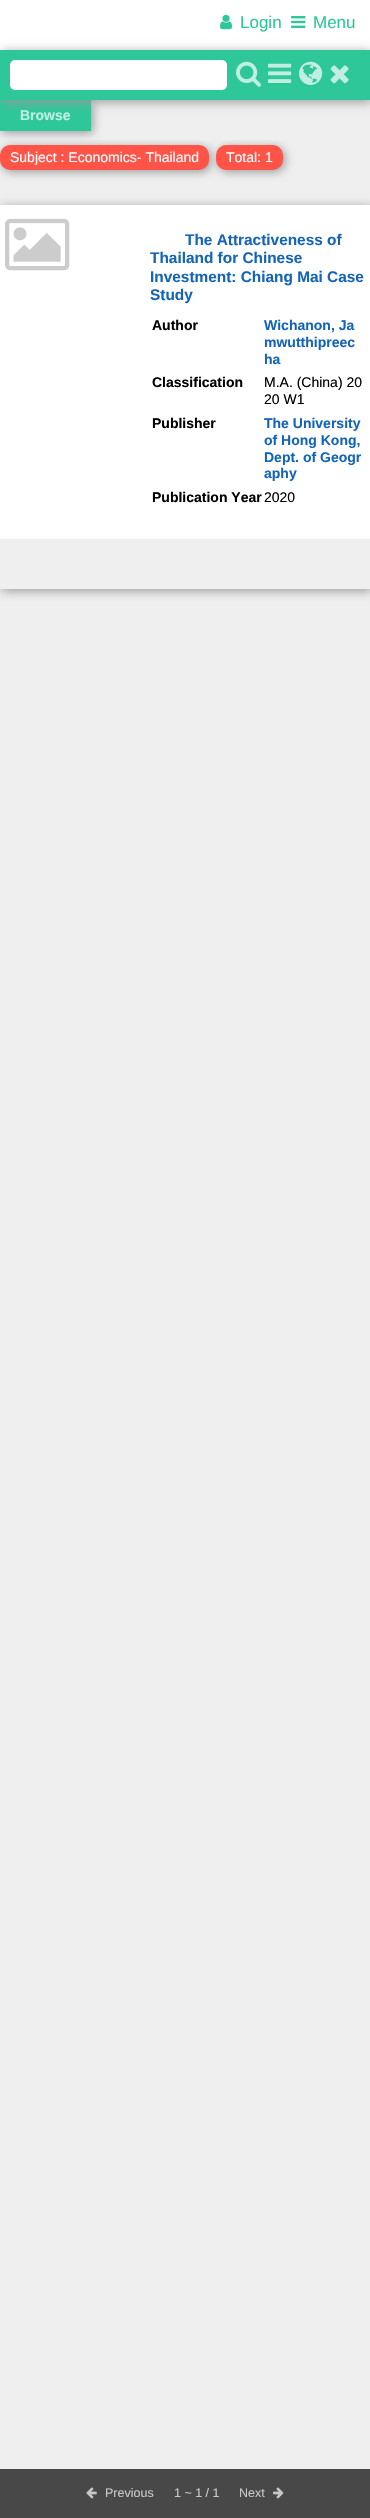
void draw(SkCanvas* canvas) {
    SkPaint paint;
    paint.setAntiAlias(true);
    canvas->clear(0xFFEFEFEF);
    paint.setColor(0xFFFFFFFF);
    canvas->drawRect(SkRect::MakeXYWH(0, 0, 370, 50), paint);
    canvas->drawImageRect(SkImages::DeferredFromEncodedData(SkData::MakeFromFileName("img1.png")), SkRect::MakeXYWH(220, 14, 12, 16), SkSamplingOptions());
    SkFont font1(fontMgr->matchFamilyStyle("Liberation Sans", SkFontStyle::Normal()), 17);
    font1.setSubpixel(true);
    paint.setColor(0xFF2EC799);
    canvas->drawString("Login", 240, 28, font1, paint);
    canvas->drawImageRect(SkImages::DeferredFromEncodedData(SkData::MakeFromFileName("img2.png")), SkRect::MakeXYWH(291, 16, 15, 12), SkSamplingOptions());
    canvas->drawString("Menu", 313, 28, font1, paint);
    canvas->save();
    canvas->clipRect(SkRect::MakeXYWH(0, 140, 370, 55));
    paint.setColor(0xFF999999);
    paint.setMaskFilter(SkMaskFilter::MakeBlur(kNormal_SkBlurStyle, 5));
    canvas->drawRoundRect(SkRect::MakeXYWH(2, 147, 209, 25), 10, 10, paint);
    paint.setMaskFilter(nullptr);
    canvas->restore();
    paint.setColor(0xFFFF5447);
    canvas->drawRoundRect(SkRect::MakeXYWH(0, 145, 209, 25), 10, 10, paint);
    paint.setColor(0xFF999999);
    paint.setMaskFilter(SkMaskFilter::MakeBlur(kNormal_SkBlurStyle, 5));
    canvas->drawRect(SkRect::MakeXYWH(2, 102, 91, 31), paint);
    paint.setMaskFilter(nullptr);
    paint.setColor(0xFF2EC799);
    canvas->drawRect(SkRect::MakeXYWH(0, 100, 91, 31), paint);
    paint.setColor(0xFF999999);
    paint.setMaskFilter(SkMaskFilter::MakeBlur(kNormal_SkBlurStyle, 5));
    canvas->drawRect(SkRect::MakeXYWH(2, 52, 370, 50), paint);
    paint.setMaskFilter(nullptr);
    paint.setColor(0xFF2EC799);
    canvas->drawRect(SkRect::MakeXYWH(0, 50, 370, 50), paint);
    paint.setColor(0xFFFFFFFF);
    canvas->drawRoundRect(SkRect::MakeXYWH(10, 60, 217, 30), 5, 5, paint);
    canvas->drawImageRect(SkImages::DeferredFromEncodedData(SkData::MakeFromFileName("img3.png")), SkRect::MakeXYWH(236, 61, 25, 26), SkSamplingOptions());
    canvas->drawImageRect(SkImages::DeferredFromEncodedData(SkData::MakeFromFileName("img4.png")), SkRect::MakeXYWH(268, 63, 24, 20), SkSamplingOptions());
    canvas->drawImageRect(SkImages::DeferredFromEncodedData(SkData::MakeFromFileName("img5.png")), SkRect::MakeXYWH(299, 61, 24, 24), SkSamplingOptions());
    canvas->drawImageRect(SkImages::DeferredFromEncodedData(SkData::MakeFromFileName("img6.png")), SkRect::MakeXYWH(330, 65, 19, 19), SkSamplingOptions());
    SkFont font2(fontMgr->matchFamilyStyle("Liberation Sans", SkFontStyle::Bold()), 14);
    font2.setSubpixel(true);
    paint.setColor(0xFFC0EEE0);
    canvas->drawString("Browse", 20, 120, font2, paint);
    SkFont font3(fontMgr->matchFamilyStyle("Liberation Sans", SkFontStyle::Normal()), 14);
    font3.setSubpixel(true);
    paint.setColor(0xFFFFFFFF);
    canvas->drawString("Subject : Economics- Thailand", 10, 162, font3, paint);
    canvas->save();
    canvas->clipRect(SkRect::MakeXYWH(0, 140, 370, 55));
    paint.setColor(0xFF999999);
    paint.setMaskFilter(SkMaskFilter::MakeBlur(kNormal_SkBlurStyle, 5));
    canvas->drawRoundRect(SkRect::MakeXYWH(218, 147, 67, 25), 10, 10, paint);
    paint.setMaskFilter(nullptr);
    canvas->restore();
    paint.setColor(0xFFFF5447);
    canvas->drawRoundRect(SkRect::MakeXYWH(216, 145, 67, 25), 10, 10, paint);
    paint.setColor(0xFFFFFFFF);
    canvas->drawString("Total: 1", 226, 162, font3, paint);
    canvas->save();
    canvas->clipPath(SkPathBuilder(SkPathFillType::kEvenOdd).moveTo(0, 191).lineTo(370, 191).lineTo(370, 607).lineTo(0, 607).close().moveTo(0, 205).lineTo(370, 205).lineTo(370, 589).lineTo(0, 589).close().detach(), true);
    paint.setColor(0xFF999999);
    paint.setMaskFilter(SkMaskFilter::MakeBlur(kNormal_SkBlurStyle, 5));
    canvas->drawRect(SkRect::MakeXYWH(2, 207, 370, 384), paint);
    paint.setMaskFilter(nullptr);
    canvas->restore();
    paint.setColor(0xFFFFFFFF);
    canvas->drawRect(SkRect::MakeXYWH(0, 205, 370, 334), paint);
    canvas->drawImageRect(SkImages::DeferredFromEncodedData(SkData::MakeFromFileName("img7.png")), SkRect::MakeXYWH(5, 218, 65, 53), SkSamplingOptions());
    SkFont font4(fontMgr->matchFamilyStyle("Liberation Sans", SkFontStyle::Bold()), 15.4f);
    font4.setSubpixel(true);
    paint.setColor(0xFF1465B7);
    canvas->drawString("The Attractiveness of", 185, 245, font4, paint);
    canvas->drawString("Thailand for Chinese", 150, 263, font4, paint);
    canvas->drawString("Investment: Chiang Mai Case", 150, 282, font4, paint);
    canvas->drawString("Study", 150, 300, font4, paint);
    paint.setColor(0xFF000000);
    canvas->drawString("Author", 152, 330, font2, paint);
    paint.setColor(0xFF1465B7);
    canvas->drawString("Wichanon, Ja", 264, 330, font2, paint);
    canvas->drawString("mwutthipreec", 264, 347, font2, paint);
    canvas->drawString("ha", 264, 364, font2, paint);
    paint.setColor(0xFF000000);
    canvas->drawString("Classification", 152, 387, font2, paint);
    canvas->drawString("M.A. (China) 20", 264, 387, font3, paint);
    canvas->drawString("20 W1", 264, 404, font3, paint);
    canvas->drawString("Publisher", 152, 428, font2, paint);
    paint.setColor(0xFF1465B7);
    canvas->drawString("The University", 264, 428, font2, paint);
    canvas->drawString("of Hong Kong,", 264, 445, font2, paint);
    canvas->drawString("Dept. of Geogr", 264, 462, font2, paint);
    canvas->drawString("aphy", 264, 478, font2, paint);
    paint.setColor(0xFF000000);
    canvas->drawString("Publication Year", 152, 502, font2, paint);
    canvas->drawString("2020", 264, 502, font3, paint);
    paint.setColor(0xFF484848);
    canvas->drawRect(SkRect::MakeXYWH(0, 2469, 370, 49), paint);
    canvas->drawImageRect(SkImages::DeferredFromEncodedData(SkData::MakeFromFileName("img8.png")), SkRect::MakeXYWH(86, 2487, 11, 12), SkSamplingOptions());
    SkFont font5(fontMgr->matchFamilyStyle("Liberation Sans", SkFontStyle::Normal()), 12.5f);
    font5.setSubpixel(true);
    paint.setColor(0xFFC8C8C8);
    canvas->drawString("Previous", 105, 2497, font5, paint);
    canvas->drawString("1 ~ 1 / 1", 174, 2497, font5, paint);
    canvas->drawString("Next", 239, 2497, font5, paint);
    canvas->drawImageRect(SkImages::DeferredFromEncodedData(SkData::MakeFromFileName("img9.png")), SkRect::MakeXYWH(273, 2487, 11, 12), SkSamplingOptions());
}
